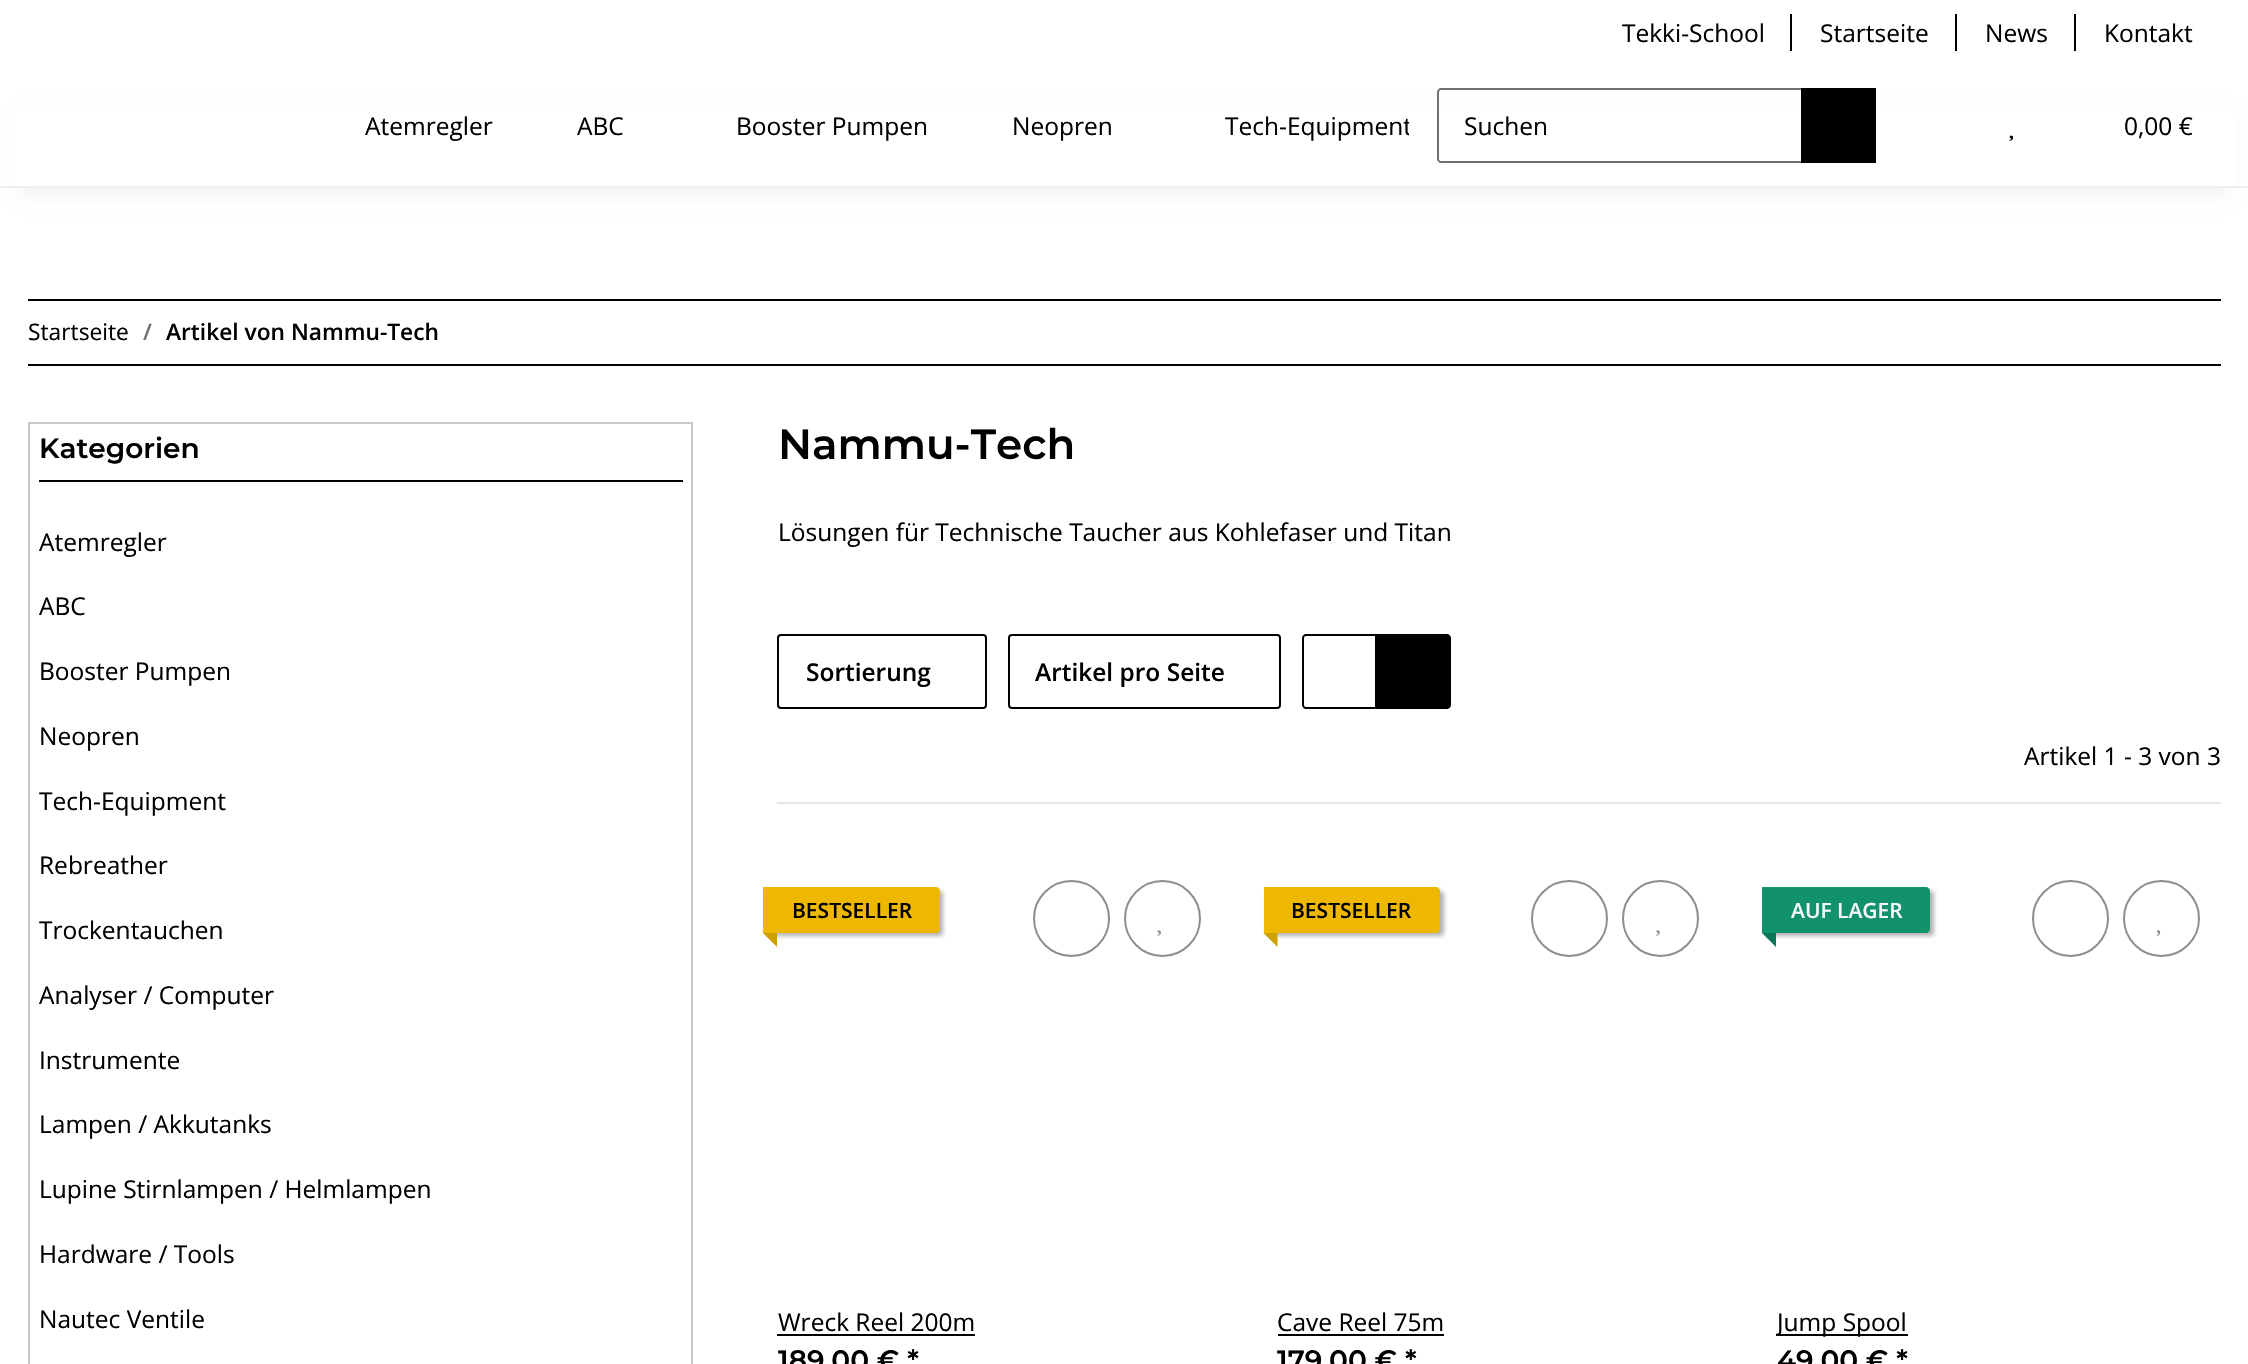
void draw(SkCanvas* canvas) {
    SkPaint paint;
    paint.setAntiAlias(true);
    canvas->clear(0xFFFFFFFF);
    SkFont font1(fontMgr->matchFamilyStyle("Open Sans", SkFontStyle::Normal()), 24.5f);
    font1.setSubpixel(true);
    paint.setColor(0xFF000000);
    canvas->drawString("Tekki-School", 1622, 42, font1, paint);
    canvas->drawRect(SkRect::MakeXYWH(1790, 14, 2, 37), paint);
    canvas->drawString("Startseite", 1820, 42, font1, paint);
    canvas->drawRect(SkRect::MakeXYWH(1955, 14, 2, 37), paint);
    canvas->drawString("News", 1985, 42, font1, paint);
    canvas->drawRect(SkRect::MakeXYWH(2074, 14, 2, 37), paint);
    canvas->drawString("Kontakt", 2104, 42, font1, paint);
    paint.setColor(0x0F000000);
    paint.setMaskFilter(SkMaskFilter::MakeBlur(kNormal_SkBlurStyle, 8));
    canvas->drawRect(SkRect::MakeXYWH(21, 114, 2207, 80), paint);
    paint.setMaskFilter(nullptr);
    paint.setColor(0xFFFFFFFF);
    canvas->drawRect(SkRect::MakeXYWH(13, 106, 2223, 80), paint);
    paint.setColor(0xFFEFEFEF);
    canvas->drawRect(SkRect::MakeXYWH(0, 186, 2248, 2), paint);
    paint.setColor(0xFF000000);
    canvas->drawString("Atemregler", 365, 135, font1, paint);
    canvas->drawString("ABC", 577, 135, font1, paint);
    canvas->drawString("Booster Pumpen", 736, 135, font1, paint);
    canvas->drawString("Neopren", 1012, 135, font1, paint);
    canvas->save();
    canvas->clipRect(SkRect::MakeXYWH(1225, 107, 184, 37));
    canvas->drawString("Tech-Equipment", 1225, 135, font1, paint);
    canvas->restore();
    paint.setStyle(SkPaint::kStroke_Style);
    paint.setStrokeWidth(2);
    paint.setColor(0xFF707070);
    canvas->drawPath(SkPathBuilder().moveTo(1441, 89).lineTo(1802, 89).lineTo(1802, 162).lineTo(1441, 162).cubicTo(1439.5f, 162, 1438, 160.5f, 1438, 159).lineTo(1438, 92).cubicTo(1438, 90.5f, 1439.5f, 89, 1441, 89).close().detach(), paint);
    paint.setStyle(SkPaint::kFill_Style);
    paint.setColor(0xFF000000);
    canvas->drawString("Suchen", 1464, 135, font1, paint);
    canvas->drawRect(SkRect::MakeXYWH(1801, 88, 75, 75), paint);
    canvas->drawImageRect(SkImages::DeferredFromEncodedData(SkData::MakeFromFileName("img1.png")), SkRect::MakeXYWH(2009, 135, 5, 6), SkSamplingOptions());
    canvas->drawString("0,00 €", 2124, 135, font1, paint);
    canvas->drawRect(SkRect::MakeXYWH(28, 299, 2193, 2), paint);
    canvas->drawRect(SkRect::MakeXYWH(28, 364, 2193, 2), paint);
    SkFont font2(fontMgr->matchFamilyStyle("Open Sans", SkFontStyle::Normal()), 22.75f);
    font2.setSubpixel(true);
    canvas->drawString("Startseite", 28, 340, font2, paint);
    SkFont font3(fontMgr->matchFamilyStyle("Open Sans", SkFontStyle(600, SkFontStyle::kNormal_Width, SkFontStyle::kUpright_Slant)), 22.75f);
    font3.setSubpixel(true);
    paint.setColor(0xFF707070);
    canvas->drawString("/", 143, 340, font3, paint);
    paint.setColor(0xFF000000);
    canvas->drawString("Artikel von Nammu-Tech", 166, 340, font3, paint);
    paint.setStyle(SkPaint::kStroke_Style);
    paint.setColor(0xFFC7C7C7);
    canvas->drawRect(SkRect::MakeXYWH(29, 423, 663, 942), paint);
    paint.setStyle(SkPaint::kFill_Style);
    paint.setColor(0xFF000000);
    canvas->drawRect(SkRect::MakeXYWH(39, 480, 644, 2), paint);
    SkFont font4(fontMgr->matchFamilyStyle("Montserrat", SkFontStyle(600, SkFontStyle::kNormal_Width, SkFontStyle::kUpright_Slant)), 28);
    font4.setSubpixel(true);
    canvas->drawString("Kategorien", 39, 458, font4, paint);
    canvas->drawString("Atemregler", 39, 551, font1, paint);
    canvas->drawString("ABC", 39, 615, font1, paint);
    canvas->drawString("Booster Pumpen", 39, 680, font1, paint);
    canvas->drawString("Neopren", 39, 745, font1, paint);
    canvas->drawString("Tech-Equipment", 39, 810, font1, paint);
    canvas->drawString("Rebreather", 39, 874, font1, paint);
    canvas->drawString("Trockentauchen", 39, 939, font1, paint);
    canvas->drawString("Analyser / Computer", 39, 1004, font1, paint);
    canvas->drawString("Instrumente", 39, 1069, font1, paint);
    canvas->drawString("Lampen / Akkutanks", 39, 1133, font1, paint);
    canvas->drawString("Lupine Stirnlampen / Helmlampen", 39, 1198, font1, paint);
    canvas->drawString("Hardware / Tools", 39, 1263, font1, paint);
    canvas->drawString("Nautec Ventile", 39, 1328, font1, paint);
    SkFont font5(fontMgr->matchFamilyStyle("Montserrat", SkFontStyle(600, SkFontStyle::kNormal_Width, SkFontStyle::kUpright_Slant)), 42);
    font5.setSubpixel(true);
    canvas->drawString("Nammu-Tech", 778, 459, font5, paint);
    canvas->drawString("Lösungen für Technische Taucher aus Kohlefaser und Titan", 778, 541, font1, paint);
    paint.setStyle(SkPaint::kStroke_Style);
    canvas->drawRoundRect(SkRect::MakeXYWH(778, 635, 208, 73), 3, 3, paint);
    SkFont font6(fontMgr->matchFamilyStyle("Open Sans", SkFontStyle(600, SkFontStyle::kNormal_Width, SkFontStyle::kUpright_Slant)), 24.5f);
    font6.setSubpixel(true);
    paint.setStyle(SkPaint::kFill_Style);
    canvas->drawString("Sortierung", 806, 681, font6, paint);
    paint.setStyle(SkPaint::kStroke_Style);
    canvas->drawRoundRect(SkRect::MakeXYWH(1009, 635, 271, 73), 3, 3, paint);
    paint.setStyle(SkPaint::kFill_Style);
    canvas->drawString("Artikel pro Seite", 1035, 681, font6, paint);
    paint.setStyle(SkPaint::kStroke_Style);
    canvas->drawPath(SkPathBuilder().moveTo(1306, 635).lineTo(1376, 635).lineTo(1376, 708).lineTo(1306, 708).cubicTo(1304.5f, 708, 1303, 706.5f, 1303, 705).lineTo(1303, 638).cubicTo(1303, 636.5f, 1304.5f, 635, 1306, 635).close().detach(), paint);
    paint.setStyle(SkPaint::kFill_Style);
    canvas->drawPath(SkPathBuilder().moveTo(1377, 635).lineTo(1447, 635).cubicTo(1448.5f, 635, 1450, 636.5f, 1450, 638).lineTo(1450, 705).cubicTo(1450, 706.5f, 1448.5f, 708, 1447, 708).lineTo(1377, 708).close().detach(), paint);
    paint.setStyle(SkPaint::kStroke_Style);
    canvas->drawPath(SkPathBuilder().moveTo(1377, 635).lineTo(1447, 635).cubicTo(1448.5f, 635, 1450, 636.5f, 1450, 638).lineTo(1450, 705).cubicTo(1450, 706.5f, 1448.5f, 708, 1447, 708).lineTo(1377, 708).close().detach(), paint);
    paint.setStyle(SkPaint::kFill_Style);
    canvas->drawString("Artikel 1 - 3 von 3", 2024, 765, font1, paint);
    paint.setColor(0xFFE6E6E6);
    canvas->drawRect(SkRect::MakeXYWH(777, 802, 1444, 2), paint);
    paint.setColor(0x4D000000);
    paint.setMaskFilter(SkMaskFilter::MakeBlur(kNormal_SkBlurStyle, 2));
    canvas->drawRoundRect(SkRect::MakeXYWH(767, 891, 176, 45), 4, 4, paint);
    paint.setMaskFilter(nullptr);
    paint.setColor(0xFFEEB700);
    canvas->drawPath(SkPathBuilder().moveTo(763, 887).lineTo(936, 887).cubicTo(938, 887, 940, 889, 940, 891).lineTo(940, 929).cubicTo(940, 931, 938, 933, 936, 933).lineTo(763, 933).close().detach(), paint);
    SkFont font7(fontMgr->matchFamilyStyle("Open Sans", SkFontStyle(600, SkFontStyle::kNormal_Width, SkFontStyle::kUpright_Slant)), 21);
    font7.setSubpixel(true);
    paint.setColor(0xFF000000);
    canvas->drawString("BESTSELLER", 792, 918, font7, paint);
    paint.setColor(0xFFCF9F00);
    canvas->drawPath(SkPathBuilder().moveTo(777, 933).lineTo(777, 947).lineTo(763, 933).close().detach(), paint);
    paint.setStyle(SkPaint::kStroke_Style);
    paint.setColor(0xFF8D8D8D);
    canvas->drawCircle(1071.5f, 918.5f, 37.5f, paint);
    canvas->drawCircle(1162.5f, 918.5f, 37.5f, paint);
    canvas->drawImageRect(SkImages::DeferredFromEncodedData(SkData::MakeFromFileName("img2.png")), SkRect::MakeXYWH(1157, 930, 4, 6), SkSamplingOptions());
    paint.setStyle(SkPaint::kFill_Style);
    paint.setColor(0xFF000000);
    canvas->drawString("Wreck Reel 200m", 778, 1331, font1, paint);
    canvas->drawRect(SkRect::MakeXYWH(777, 1334, 198, 2), paint);
    canvas->drawString("189,00 € *", 778, 1370, font4, paint);
    paint.setColor(0x4D000000);
    paint.setMaskFilter(SkMaskFilter::MakeBlur(kNormal_SkBlurStyle, 2));
    canvas->drawRoundRect(SkRect::MakeXYWH(1267, 891, 177, 45), 4, 4, paint);
    paint.setMaskFilter(nullptr);
    paint.setColor(0xFFEEB700);
    canvas->drawPath(SkPathBuilder().moveTo(1264, 887).lineTo(1436, 887).cubicTo(1438, 887, 1440, 889, 1440, 891).lineTo(1440, 929).cubicTo(1440, 931, 1438, 933, 1436, 933).lineTo(1264, 933).close().detach(), paint);
    paint.setColor(0xFF000000);
    canvas->drawString("BESTSELLER", 1291, 918, font7, paint);
    paint.setColor(0xFFCF9F00);
    canvas->drawPath(SkPathBuilder().moveTo(1277.5f, 933).lineTo(1277.5f, 947).lineTo(1263.5f, 933).close().detach(), paint);
    paint.setStyle(SkPaint::kStroke_Style);
    paint.setColor(0xFF8D8D8D);
    canvas->drawCircle(1569.5f, 918.5f, 37.5f, paint);
    canvas->drawCircle(1660.5f, 918.5f, 37.5f, paint);
    canvas->drawImageRect(SkImages::DeferredFromEncodedData(SkData::MakeFromFileName("img3.png")), SkRect::MakeXYWH(1656, 930, 4, 6), SkSamplingOptions());
    paint.setStyle(SkPaint::kFill_Style);
    paint.setColor(0xFF000000);
    canvas->drawString("Cave Reel 75m", 1277, 1331, font1, paint);
    canvas->drawRect(SkRect::MakeXYWH(1278, 1334, 166, 2), paint);
    canvas->drawString("179,00 € *", 1277, 1370, font4, paint);
    paint.setColor(0x4D000000);
    paint.setMaskFilter(SkMaskFilter::MakeBlur(kNormal_SkBlurStyle, 2));
    canvas->drawRoundRect(SkRect::MakeXYWH(1766, 891, 168, 45), 4, 4, paint);
    paint.setMaskFilter(nullptr);
    paint.setColor(0xFF11926B);
    canvas->drawPath(SkPathBuilder().moveTo(1762, 887).lineTo(1926, 887).cubicTo(1928, 887, 1930, 889, 1930, 891).lineTo(1930, 929).cubicTo(1930, 931, 1928, 933, 1926, 933).lineTo(1762, 933).close().detach(), paint);
    paint.setColor(0xFFF5F7FA);
    canvas->drawString("AUF LAGER", 1791, 918, font7, paint);
    paint.setColor(0xFF0E7757);
    canvas->drawPath(SkPathBuilder().moveTo(1776, 933).lineTo(1776, 947).lineTo(1762, 933).close().detach(), paint);
    paint.setStyle(SkPaint::kStroke_Style);
    paint.setColor(0xFF8D8D8D);
    canvas->drawCircle(2070.5f, 918.5f, 37.5f, paint);
    canvas->drawCircle(2161.5f, 918.5f, 37.5f, paint);
    canvas->drawImageRect(SkImages::DeferredFromEncodedData(SkData::MakeFromFileName("img4.png")), SkRect::MakeXYWH(2156, 930, 5, 6), SkSamplingOptions());
    paint.setStyle(SkPaint::kFill_Style);
    paint.setColor(0xFF000000);
    canvas->drawRect(SkRect::MakeXYWH(1776, 1334, 132, 2), paint);
    canvas->save();
    canvas->clipRect(SkRect::MakeXYWH(1776, 1304, 445, 37));
    canvas->drawString("Jump Spool", 1777, 1331, font1, paint);
    canvas->restore();
    canvas->drawString("49,00 € *", 1777, 1370, font4, paint);
}
